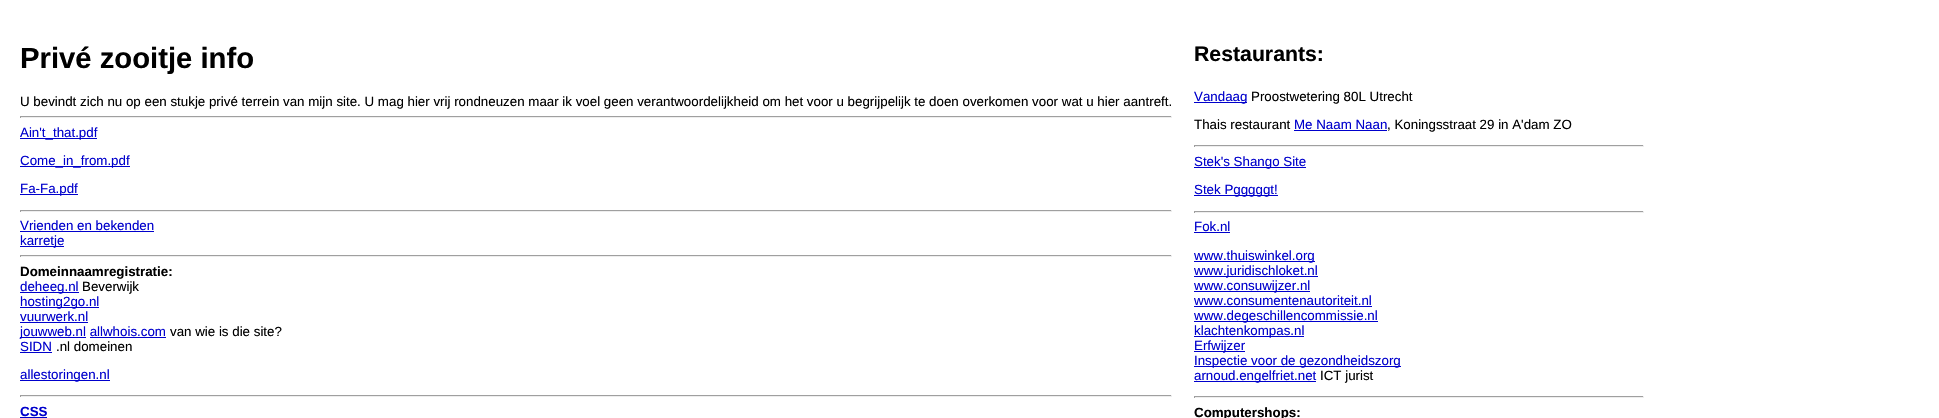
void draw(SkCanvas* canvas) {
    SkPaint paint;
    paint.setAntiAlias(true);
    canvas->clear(0xFFFFFFFF);
    SkFont font1(fontMgr->matchFamilyStyle("Liberation Sans", SkFontStyle::Bold()), 29.25f);
    font1.setSubpixel(true);
    paint.setColor(0xFF000000);
    canvas->drawString("Privé zooitje info", 20, 68, font1, paint);
    SkFont font2(fontMgr->matchFamilyStyle("Liberation Sans", SkFontStyle::Normal()), 13.33f);
    font2.setSubpixel(true);
    canvas->drawString("U bevindt zich nu op een stukje privé terrein van mijn site. U mag hier vrij rondneuzen maar ik voel geen verantwoordelijkheid om het voor u begrijpelijk te doen overkomen voor wat u hier aantreft.", 20, 106, font2, paint);
    paint.setColor(0xFF9F9F9F);
    canvas->drawRect(SkRect::MakeXYWH(20, 116, 1152, 1), paint);
    paint.setColor(0xFFEEEEEE);
    canvas->drawRect(SkRect::MakeXYWH(1171, 116, 1, 2), paint);
    canvas->drawRect(SkRect::MakeXYWH(20, 117, 1152, 1), paint);
    paint.setColor(0xFF9F9F9F);
    canvas->drawRect(SkRect::MakeXYWH(20, 116, 1, 2), paint);
    paint.setColor(0xFF0000CC);
    canvas->drawRect(SkRect::MakeXYWH(20, 138, 77, 1), paint);
    canvas->drawString("Ain't_that.pdf", 20, 137, font2, paint);
    canvas->drawRect(SkRect::MakeXYWH(20, 166, 110, 1), paint);
    canvas->drawString("Come_in_from.pdf", 20, 165, font2, paint);
    canvas->drawRect(SkRect::MakeXYWH(20, 194, 58, 1), paint);
    canvas->drawString("Fa-Fa.pdf", 20, 193, font2, paint);
    paint.setColor(0xFF9F9F9F);
    canvas->drawRect(SkRect::MakeXYWH(20, 210, 1152, 1), paint);
    paint.setColor(0xFFEEEEEE);
    canvas->drawRect(SkRect::MakeXYWH(1171, 210, 1, 2), paint);
    canvas->drawRect(SkRect::MakeXYWH(20, 211, 1152, 1), paint);
    paint.setColor(0xFF9F9F9F);
    canvas->drawRect(SkRect::MakeXYWH(20, 210, 1, 2), paint);
    paint.setColor(0xFF0000CC);
    canvas->drawString("Vrienden en bekenden", 20, 230, font2, paint);
    canvas->drawRect(SkRect::MakeXYWH(20, 231, 134, 1), paint);
    canvas->drawRect(SkRect::MakeXYWH(20, 246, 44, 1), paint);
    canvas->drawString("karretje", 20, 245, font2, paint);
    paint.setColor(0xFF9F9F9F);
    canvas->drawRect(SkRect::MakeXYWH(20, 255, 1152, 1), paint);
    paint.setColor(0xFFEEEEEE);
    canvas->drawRect(SkRect::MakeXYWH(1171, 255, 1, 2), paint);
    canvas->drawRect(SkRect::MakeXYWH(20, 256, 1152, 1), paint);
    paint.setColor(0xFF9F9F9F);
    canvas->drawRect(SkRect::MakeXYWH(20, 255, 1, 2), paint);
    SkFont font3(fontMgr->matchFamilyStyle("Liberation Sans", SkFontStyle::Bold()), 13.33f);
    font3.setSubpixel(true);
    paint.setColor(0xFF000000);
    canvas->drawString("Domeinnaamregistratie:", 20, 276, font3, paint);
    paint.setColor(0xFF0000CC);
    canvas->drawRect(SkRect::MakeXYWH(20, 292, 59, 1), paint);
    canvas->drawString("deheeg.nl", 20, 291, font2, paint);
    paint.setColor(0xFF000000);
    canvas->drawString("Beverwijk", 82, 291, font2, paint);
    paint.setColor(0xFF0000CC);
    canvas->drawRect(SkRect::MakeXYWH(20, 307, 79, 1), paint);
    canvas->drawString("hosting2go.nl", 20, 306, font2, paint);
    canvas->drawString("vuurwerk.nl", 20, 321, font2, paint);
    canvas->drawRect(SkRect::MakeXYWH(20, 322, 68, 1), paint);
    canvas->drawRect(SkRect::MakeXYWH(20, 337, 66, 1), paint);
    canvas->drawString("jouwweb.nl allwhois.com", 20, 336, font2, paint);
    paint.setColor(0xFF000000);
    canvas->drawString("van wie is die site?", 170, 336, font2, paint);
    paint.setColor(0xFF0000CC);
    canvas->drawRect(SkRect::MakeXYWH(90, 337, 76, 1), paint);
    canvas->drawString("SIDN", 20, 351, font2, paint);
    canvas->drawRect(SkRect::MakeXYWH(20, 352, 32, 1), paint);
    paint.setColor(0xFF000000);
    canvas->drawString(".nl domeinen", 56, 351, font2, paint);
    paint.setColor(0xFF0000CC);
    canvas->drawRect(SkRect::MakeXYWH(20, 380, 90, 1), paint);
    canvas->drawString("allestoringen.nl", 20, 379, font2, paint);
    paint.setColor(0xFF9F9F9F);
    canvas->drawRect(SkRect::MakeXYWH(20, 395, 1152, 1), paint);
    paint.setColor(0xFFEEEEEE);
    canvas->drawRect(SkRect::MakeXYWH(1171, 395, 1, 2), paint);
    canvas->drawRect(SkRect::MakeXYWH(20, 396, 1152, 1), paint);
    paint.setColor(0xFF9F9F9F);
    canvas->drawRect(SkRect::MakeXYWH(20, 395, 1, 2), paint);
    paint.setColor(0xFF0000CC);
    canvas->drawString("CSS", 20, 416, font3, paint);
    canvas->drawRect(SkRect::MakeXYWH(20, 417, 27, 1), paint);
    SkFont font4(fontMgr->matchFamilyStyle("Liberation Sans", SkFontStyle::Bold()), 21.25f);
    font4.setSubpixel(true);
    paint.setColor(0xFF000000);
    canvas->drawString("Restaurants:", 1194, 61, font4, paint);
    paint.setColor(0xFF0000CC);
    canvas->drawRect(SkRect::MakeXYWH(1194, 102, 53, 1), paint);
    canvas->drawString("Vandaag", 1194, 101, font2, paint);
    paint.setColor(0xFF000000);
    canvas->drawString("Proostwetering 80L Utrecht", 1251, 101, font2, paint);
    canvas->drawString("Thais restaurant", 1194, 129, font2, paint);
    paint.setColor(0xFF0000CC);
    canvas->drawString("Me Naam Naan", 1294, 129, font2, paint);
    canvas->drawRect(SkRect::MakeXYWH(1294, 130, 93, 1), paint);
    paint.setColor(0xFF000000);
    canvas->drawString(", Koningsstraat 29 in A'dam ZO", 1387, 129, font2, paint);
    paint.setColor(0xFF9F9F9F);
    canvas->drawRect(SkRect::MakeXYWH(1194, 145, 450, 1), paint);
    paint.setColor(0xFFEEEEEE);
    canvas->drawRect(SkRect::MakeXYWH(1643, 145, 1, 2), paint);
    canvas->drawRect(SkRect::MakeXYWH(1194, 146, 450, 1), paint);
    paint.setColor(0xFF9F9F9F);
    canvas->drawRect(SkRect::MakeXYWH(1194, 145, 1, 2), paint);
    paint.setColor(0xFF0000CC);
    canvas->drawRect(SkRect::MakeXYWH(1194, 167, 112, 1), paint);
    canvas->drawString("Stek's Shango Site", 1194, 166, font2, paint);
    canvas->drawRect(SkRect::MakeXYWH(1194, 195, 84, 1), paint);
    canvas->drawString("Stek Pgggggt!", 1194, 194, font2, paint);
    paint.setColor(0xFF9F9F9F);
    canvas->drawRect(SkRect::MakeXYWH(1194, 211, 450, 1), paint);
    paint.setColor(0xFFEEEEEE);
    canvas->drawRect(SkRect::MakeXYWH(1643, 211, 1, 2), paint);
    canvas->drawRect(SkRect::MakeXYWH(1194, 212, 450, 1), paint);
    paint.setColor(0xFF9F9F9F);
    canvas->drawRect(SkRect::MakeXYWH(1194, 211, 1, 2), paint);
    paint.setColor(0xFF0000CC);
    canvas->drawString("Fok.nl", 1194, 231, font2, paint);
    canvas->drawRect(SkRect::MakeXYWH(1194, 232, 36, 1), paint);
    canvas->drawRect(SkRect::MakeXYWH(1194, 261, 121, 1), paint);
    canvas->drawString("www.thuiswinkel.org", 1194, 260, font2, paint);
    canvas->drawRect(SkRect::MakeXYWH(1194, 276, 124, 1), paint);
    canvas->drawString("www.juridischloket.nl", 1194, 275, font2, paint);
    canvas->drawRect(SkRect::MakeXYWH(1194, 291, 116, 1), paint);
    canvas->drawString("www.consuwijzer.nl", 1194, 290, font2, paint);
    canvas->drawString("www.consumentenautoriteit.nl", 1194, 305, font2, paint);
    canvas->drawRect(SkRect::MakeXYWH(1194, 306, 178, 1), paint);
    canvas->drawRect(SkRect::MakeXYWH(1194, 321, 184, 1), paint);
    canvas->drawString("www.degeschillencommissie.nl", 1194, 320, font2, paint);
    canvas->drawRect(SkRect::MakeXYWH(1194, 336, 110, 1), paint);
    canvas->drawString("klachtenkompas.nl", 1194, 335, font2, paint);
    canvas->drawRect(SkRect::MakeXYWH(1194, 351, 51, 1), paint);
    canvas->drawString("Erfwijzer", 1194, 350, font2, paint);
    canvas->drawRect(SkRect::MakeXYWH(1194, 366, 207, 1), paint);
    canvas->drawString("Inspectie voor de gezondheidszorg", 1194, 365, font2, paint);
    canvas->drawRect(SkRect::MakeXYWH(1194, 381, 122, 1), paint);
    canvas->drawString("arnoud.engelfriet.net", 1194, 380, font2, paint);
    paint.setColor(0xFF000000);
    canvas->drawString("ICT jurist", 1320, 380, font2, paint);
    paint.setColor(0xFF9F9F9F);
    canvas->drawRect(SkRect::MakeXYWH(1194, 396, 450, 1), paint);
    paint.setColor(0xFFEEEEEE);
    canvas->drawRect(SkRect::MakeXYWH(1643, 396, 1, 2), paint);
    canvas->drawRect(SkRect::MakeXYWH(1194, 397, 450, 1), paint);
    paint.setColor(0xFF9F9F9F);
    canvas->drawRect(SkRect::MakeXYWH(1194, 396, 1, 2), paint);
    paint.setColor(0xFF000000);
    canvas->drawString("Computershops:", 1194, 417, font3, paint);
}
